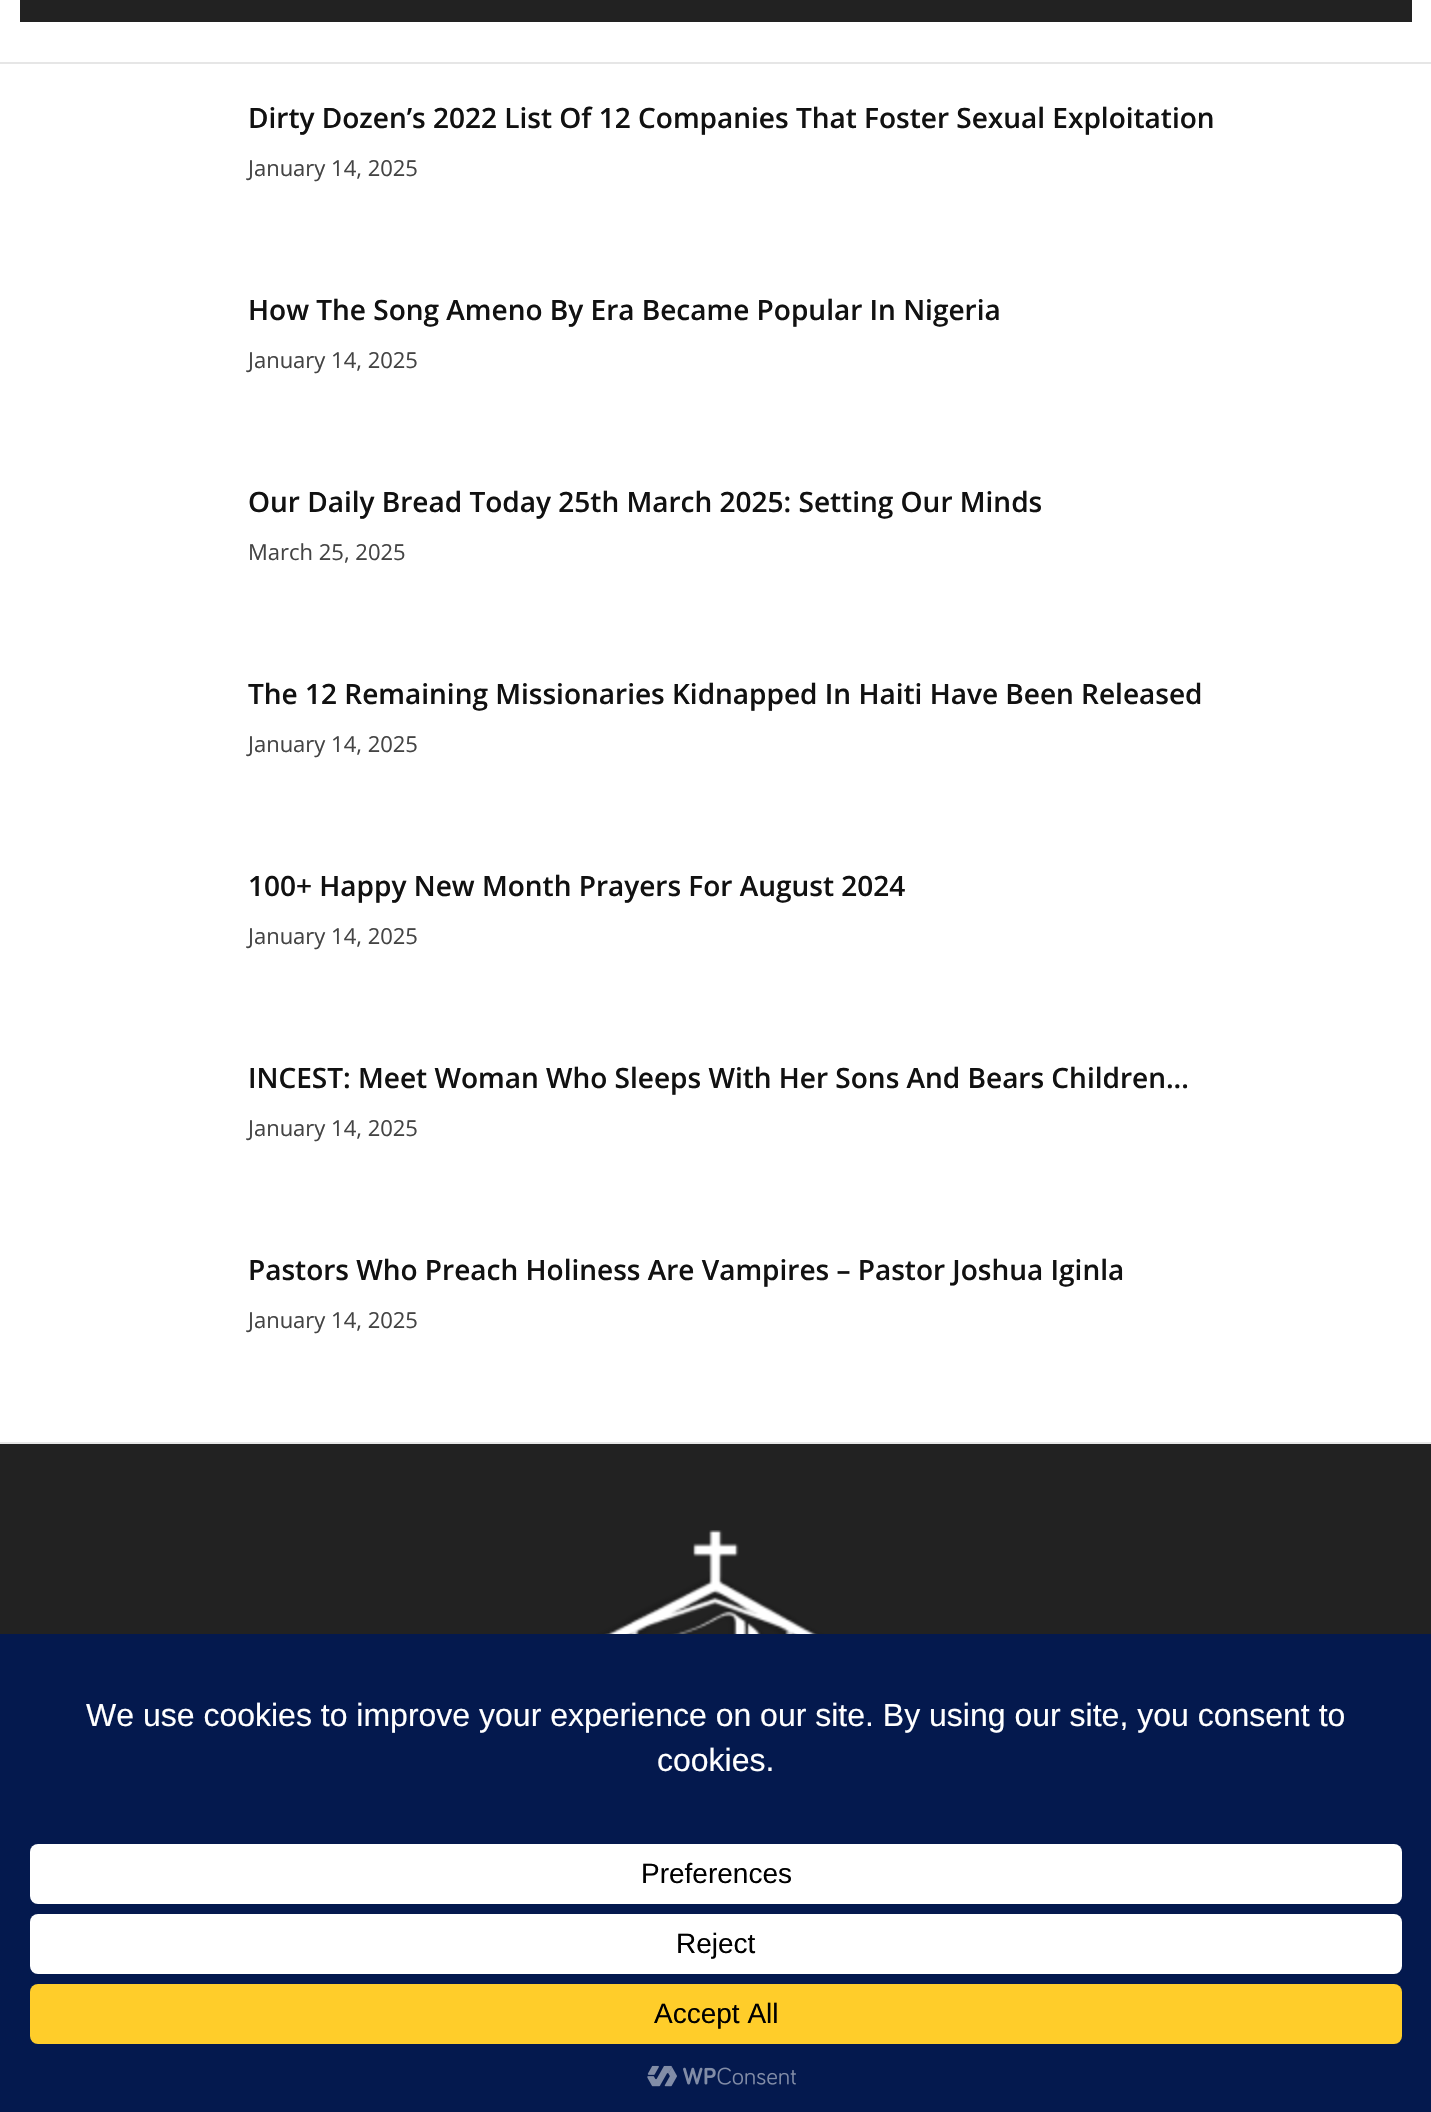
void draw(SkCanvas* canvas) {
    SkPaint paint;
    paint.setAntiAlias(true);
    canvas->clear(0xFFFFFFFF);
    paint.setColor(0xFFE6E6E6);
    canvas->drawRect(SkRect::MakeXYWH(0, 1442, 1431, 2), paint);
    paint.setColor(0xFF222222);
    canvas->drawRect(SkRect::MakeXYWH(20, 0, 1392, 22), paint);
    paint.setColor(0xFFE6E6E6);
    canvas->drawRect(SkRect::MakeXYWH(0, 62, 1431, 2), paint);
    SkFont font1(fontMgr->matchFamilyStyle("Open Sans", SkFontStyle(600, SkFontStyle::kNormal_Width, SkFontStyle::kUpright_Slant)), 28);
    font1.setSubpixel(true);
    paint.setColor(0xFF111111);
    canvas->drawString("Dirty Dozen’s 2022 List Of 12 Companies That Foster Sexual Exploitation", 248, 128, font1, paint);
    SkFont font2(fontMgr->matchFamilyStyle("Open Sans", SkFontStyle::Normal()), 22);
    font2.setSubpixel(true);
    paint.setColor(0xFF444444);
    canvas->drawString("January 14, 2025", 248, 176, font2, paint);
    paint.setColor(0xFF111111);
    canvas->drawString("How The Song Ameno By Era Became Popular In Nigeria", 248, 320, font1, paint);
    paint.setColor(0xFF444444);
    canvas->drawString("January 14, 2025", 248, 368, font2, paint);
    paint.setColor(0xFF111111);
    canvas->drawString("Our Daily Bread Today 25th March 2025: Setting Our Minds", 248, 512, font1, paint);
    paint.setColor(0xFF444444);
    canvas->drawString("March 25, 2025", 248, 560, font2, paint);
    paint.setColor(0xFF111111);
    canvas->drawString("The 12 Remaining Missionaries Kidnapped In Haiti Have Been Released", 248, 704, font1, paint);
    paint.setColor(0xFF444444);
    canvas->drawString("January 14, 2025", 248, 752, font2, paint);
    paint.setColor(0xFF111111);
    canvas->drawString("100+ Happy New Month Prayers For August 2024", 248, 896, font1, paint);
    paint.setColor(0xFF444444);
    canvas->drawString("January 14, 2025", 248, 944, font2, paint);
    paint.setColor(0xFF111111);
    canvas->drawString("INCEST: Meet Woman Who Sleeps With Her Sons And Bears Children...", 248, 1088, font1, paint);
    paint.setColor(0xFF444444);
    canvas->drawString("January 14, 2025", 248, 1136, font2, paint);
    paint.setColor(0xFF111111);
    canvas->drawString("Pastors Who Preach Holiness Are Vampires – Pastor Joshua Iginla", 248, 1280, font1, paint);
    paint.setColor(0xFF444444);
    canvas->drawString("January 14, 2025", 248, 1328, font2, paint);
    paint.setColor(0xFF222222);
    canvas->drawRect(SkRect::MakeXYWH(0, 1444, 1431, 190), paint);
    canvas->drawImageRect(SkImages::DeferredFromEncodedData(SkData::MakeFromFileName("img1.png")), SkRect::MakeXYWH(596, 1530, 228, 104), SkSamplingOptions());
    paint.setColor(0xFF04194E);
    canvas->drawRect(SkRect::MakeXYWH(0, 1634, 1431, 478), paint);
    SkFont font3(fontMgr->matchFamilyStyle("Liberation Sans", SkFontStyle::Normal()), 32);
    font3.setSubpixel(true);
    paint.setColor(0xFFFFFFFF);
    canvas->drawString("We use cookies to improve your experience on our site. By using our site, you consent to", 86, 1726, font3, paint);
    canvas->drawString("cookies.", 657, 1771, font3, paint);
    canvas->drawRoundRect(SkRect::MakeXYWH(30, 1844, 1372, 60), 8, 8, paint);
    SkFont font4(fontMgr->matchFamilyStyle("Liberation Sans", SkFontStyle::Normal()), 28);
    font4.setSubpixel(true);
    paint.setColor(0xFF000000);
    canvas->drawString("Preferences", 641, 1883, font4, paint);
    paint.setColor(0xFFFFFFFF);
    canvas->drawRoundRect(SkRect::MakeXYWH(30, 1914, 1372, 60), 8, 8, paint);
    paint.setColor(0xFF000000);
    canvas->drawString("Reject", 676, 1953, font4, paint);
    paint.setColor(0xFFFFCD2A);
    canvas->drawRoundRect(SkRect::MakeXYWH(30, 1984, 1372, 60), 8, 8, paint);
    paint.setColor(0xFF000000);
    canvas->drawString("Accept All", 654, 2023, font4, paint);
    canvas->drawImageRect(SkImages::DeferredFromEncodedData(SkData::MakeFromFileName("img2.png")), SkRect::MakeXYWH(647, 2065, 149, 22), SkSamplingOptions());
}
